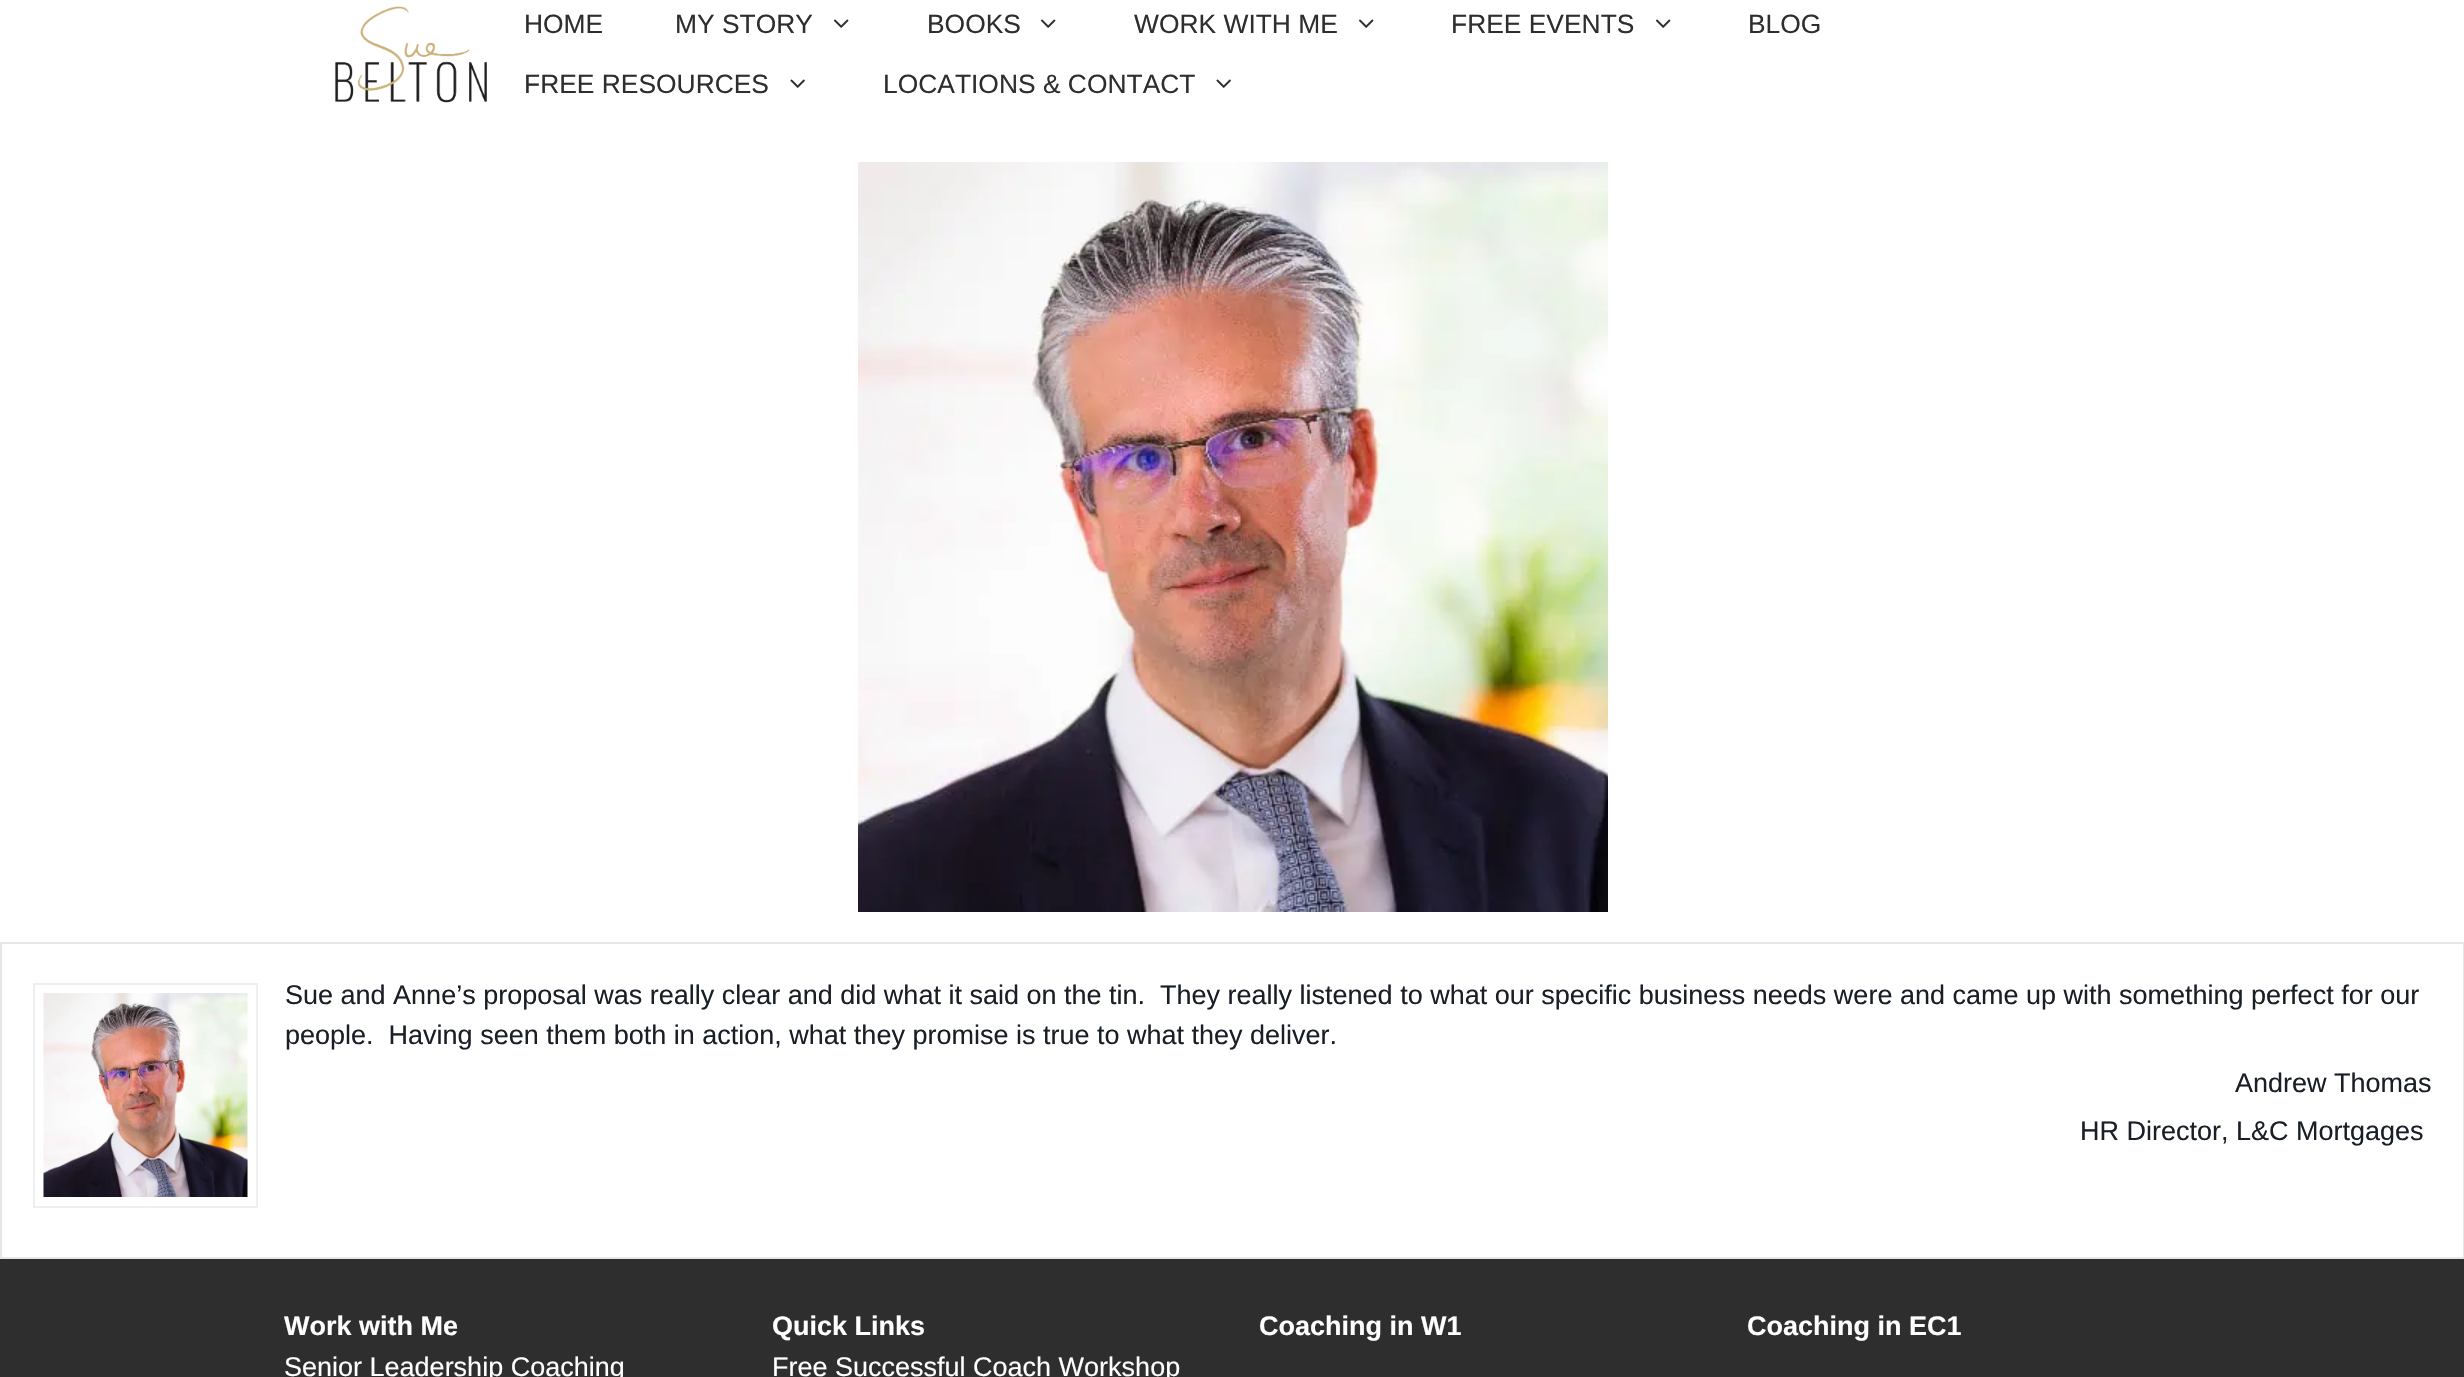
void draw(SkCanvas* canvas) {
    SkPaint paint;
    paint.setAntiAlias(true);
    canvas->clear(0xFFFFFFFF);
    canvas->drawImageRect(SkImages::DeferredFromEncodedData(SkData::MakeFromFileName("img1.png")), SkRect::MakeXYWH(335, 6, 152, 97), SkSamplingOptions());
    SkFont font1(fontMgr->matchFamilyStyle("Liberation Sans", SkFontStyle::Normal()), 26.4f);
    font1.setSubpixel(true);
    paint.setColor(0xFF2E2E2E);
    canvas->drawString("HOME", 524, 33, font1, paint);
    canvas->drawString("MY STORY", 675, 33, font1, paint);
    canvas->drawImageRect(SkImages::DeferredFromEncodedData(SkData::MakeFromFileName("img2.png")), SkRect::MakeXYWH(833, 19, 16, 9), SkSamplingOptions());
    canvas->drawString("BOOKS", 927, 33, font1, paint);
    canvas->drawImageRect(SkImages::DeferredFromEncodedData(SkData::MakeFromFileName("img2.png")), SkRect::MakeXYWH(1040, 19, 16, 9), SkSamplingOptions());
    canvas->drawString("WORK WITH ME", 1134, 33, font1, paint);
    canvas->drawImageRect(SkImages::DeferredFromEncodedData(SkData::MakeFromFileName("img2.png")), SkRect::MakeXYWH(1358, 19, 16, 9), SkSamplingOptions());
    canvas->drawString("FREE EVENTS", 1451, 33, font1, paint);
    canvas->drawImageRect(SkImages::DeferredFromEncodedData(SkData::MakeFromFileName("img2.png")), SkRect::MakeXYWH(1655, 19, 16, 9), SkSamplingOptions());
    canvas->drawString("BLOG", 1748, 33, font1, paint);
    canvas->drawString("FREE RESOURCES", 524, 93, font1, paint);
    canvas->drawImageRect(SkImages::DeferredFromEncodedData(SkData::MakeFromFileName("img3.png")), SkRect::MakeXYWH(790, 79, 15, 9), SkSamplingOptions());
    canvas->drawString("LOCATIONS & CONTACT", 883, 93, font1, paint);
    canvas->drawImageRect(SkImages::DeferredFromEncodedData(SkData::MakeFromFileName("img3.png")), SkRect::MakeXYWH(1216, 79, 15, 9), SkSamplingOptions());
    canvas->drawImageRect(SkImages::DeferredFromEncodedData(SkData::MakeFromFileName("img4.png")), SkRect::MakeXYWH(858, 162, 750, 750), SkSamplingOptions());
    paint.setStyle(SkPaint::kStroke_Style);
    paint.setStrokeWidth(2);
    paint.setColor(0xFFE6E6E6);
    canvas->drawRect(SkRect::MakeXYWH(1, 943, 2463, 315), paint);
    paint.setColor(0xFFEFEFEF);
    canvas->drawRect(SkRect::MakeXYWH(34, 984, 223, 223), paint);
    canvas->drawImageRect(SkImages::DeferredFromEncodedData(SkData::MakeFromFileName("img5.png")), SkRect::MakeXYWH(43, 993, 205, 204), SkSamplingOptions());
    SkFont font2(fontMgr->matchFamilyStyle("Liberation Sans", SkFontStyle::Normal()), 27);
    font2.setSubpixel(true);
    paint.setStyle(SkPaint::kFill_Style);
    paint.setColor(0xFF1A1F27);
    canvas->drawString("Sue and Anne’s proposal was really clear and did what it said on the tin.  They really listened to what our specific business needs were and came up with something perfect for our", 285, 1004, font2, paint);
    canvas->drawString("people.  Having seen them both in action, what they promise is true to what they deliver.", 285, 1044, font2, paint);
    canvas->drawString("Andrew Thomas", 2235, 1092, font2, paint);
    canvas->drawString("HR Director, L&C Mortgages", 2080, 1140, font2, paint);
    paint.setColor(0xFF2E2E2E);
    canvas->drawRect(SkRect::MakeXYWH(0, 1259, 2464, 118), paint);
    SkFont font3(fontMgr->matchFamilyStyle("Liberation Sans", SkFontStyle::Bold()), 27);
    font3.setSubpixel(true);
    paint.setColor(0xFFFFFFFF);
    canvas->drawString("Work with Me", 284, 1335, font3, paint);
    canvas->drawString("Senior Leadership Coaching", 284, 1376, font2, paint);
    canvas->drawString("Quick Links", 772, 1335, font3, paint);
    canvas->drawString("Free Successful Coach Workshop", 772, 1376, font2, paint);
    canvas->drawString("Coaching in W1", 1259, 1335, font3, paint);
    canvas->drawString("Coaching in EC1", 1747, 1335, font3, paint);
}
